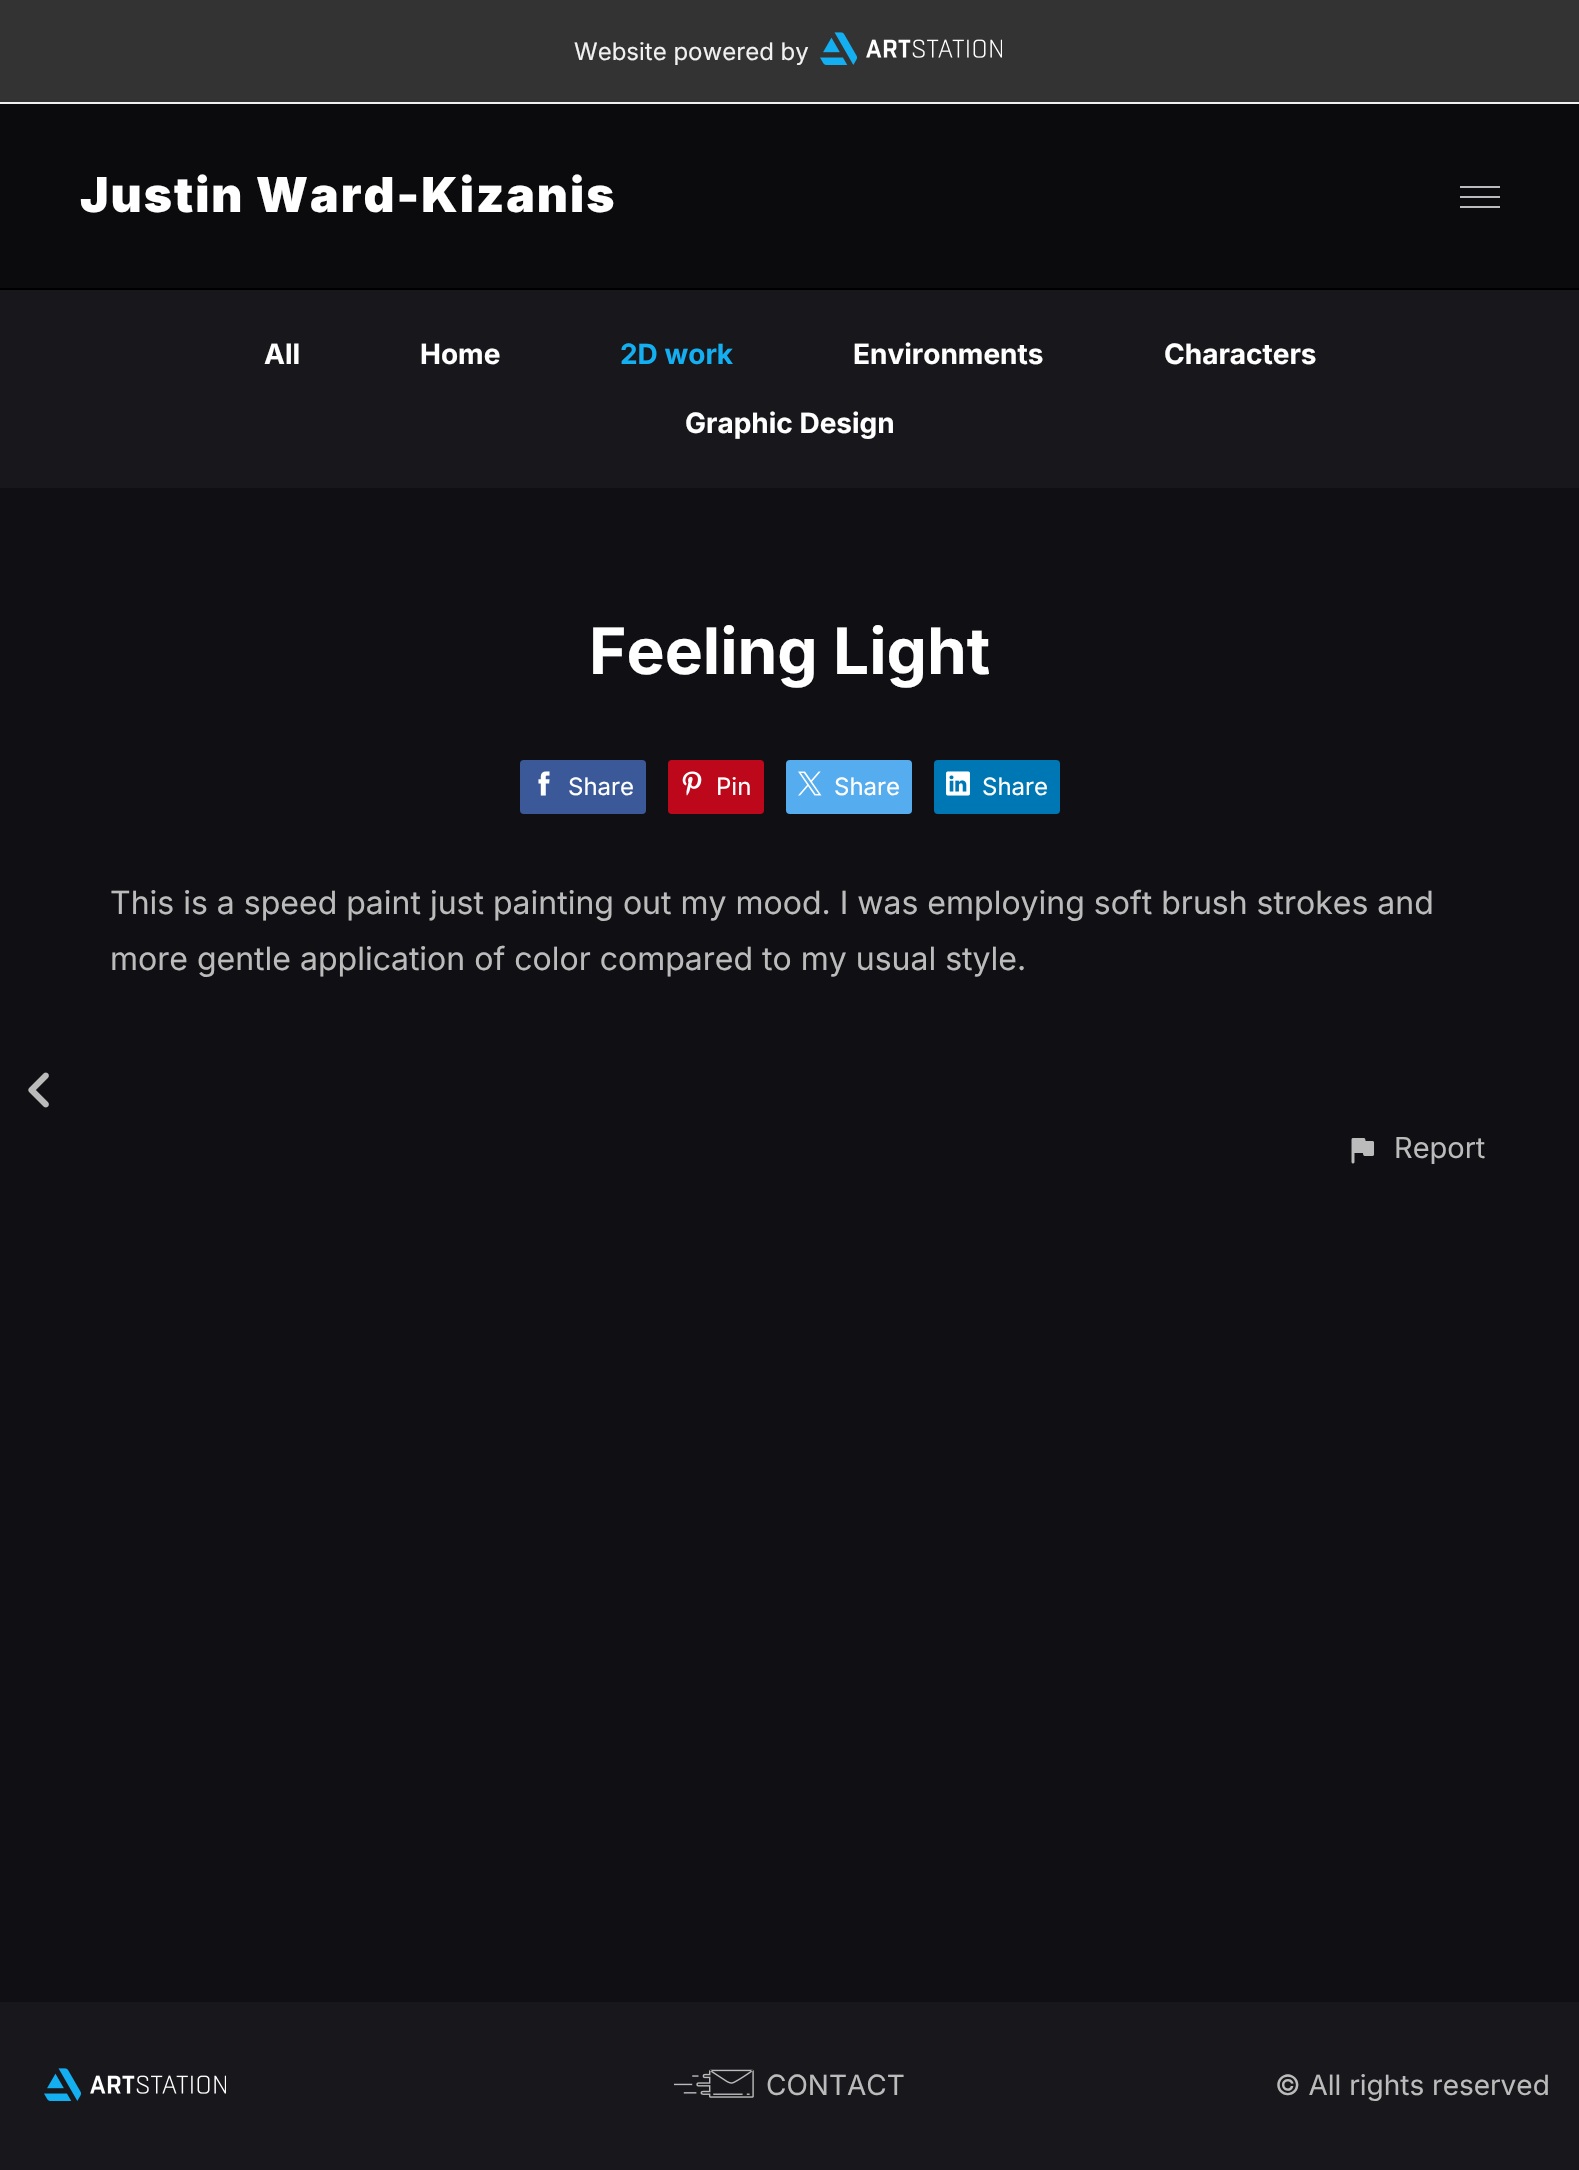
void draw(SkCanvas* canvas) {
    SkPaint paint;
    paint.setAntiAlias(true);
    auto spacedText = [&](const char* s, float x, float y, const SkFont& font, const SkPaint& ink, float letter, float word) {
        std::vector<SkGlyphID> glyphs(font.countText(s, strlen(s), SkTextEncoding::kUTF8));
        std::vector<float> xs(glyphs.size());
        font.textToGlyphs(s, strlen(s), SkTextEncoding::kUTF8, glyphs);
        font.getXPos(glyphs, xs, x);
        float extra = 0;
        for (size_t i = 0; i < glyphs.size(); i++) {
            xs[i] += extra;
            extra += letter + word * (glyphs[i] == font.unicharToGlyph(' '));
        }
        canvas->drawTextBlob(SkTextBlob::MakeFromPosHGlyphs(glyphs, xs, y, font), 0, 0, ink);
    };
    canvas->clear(0xFF101014);
    paint.setColor(0xFF333333);
    canvas->drawRect(SkRect::MakeXYWH(0, 0, 1579, 102), paint);
    paint.setColor(0xFFF1F1F1);
    canvas->drawRect(SkRect::MakeXYWH(0, 102, 1579, 2), paint);
    SkFont font1(fontMgr->matchFamilyStyle("Inter", SkFontStyle::Normal()), 24);
    font1.setSubpixel(true);
    canvas->drawString("Website powered by", 574, 60, font1, paint);
    canvas->drawImageRect(SkImages::DeferredFromEncodedData(SkData::MakeFromFileName("img1.png")), SkRect::MakeXYWH(820, 32, 182, 33), SkSamplingOptions());
    paint.setColor(0xFF0B0B0E);
    canvas->drawRect(SkRect::MakeXYWH(0, 104, 1579, 184), paint);
    paint.setColor(0xFF000000);
    canvas->drawRect(SkRect::MakeXYWH(0, 288, 1579, 2), paint);
    SkFont font2(fontMgr->matchFamilyStyle("Inter", SkFontStyle(900, SkFontStyle::kNormal_Width, SkFontStyle::kUpright_Slant)), 48);
    font2.setSubpixel(true);
    paint.setColor(0xFFFFFFFF);
    spacedText("Justin Ward-Kizanis", 80, 212, font2, paint, 2, 0);
    paint.setColor(0xFFBBBBBB);
    canvas->drawRect(SkRect::MakeXYWH(1460, 186, 40, 2), paint);
    canvas->drawRect(SkRect::MakeXYWH(1460, 196, 40, 2), paint);
    canvas->drawRect(SkRect::MakeXYWH(1460, 206, 40, 2), paint);
    paint.setColor(0xFF18181C);
    canvas->drawRect(SkRect::MakeXYWH(0, 290, 1579, 198), paint);
    SkFont font3(fontMgr->matchFamilyStyle("Inter", SkFontStyle::Bold()), 28);
    font3.setSubpixel(true);
    paint.setColor(0xFFFFFFFF);
    canvas->drawString("All", 264, 364, font3, paint);
    canvas->drawString("Home", 420, 364, font3, paint);
    paint.setColor(0xFF13AFF0);
    canvas->drawString("2D work", 620, 364, font3, paint);
    paint.setColor(0xFFFFFFFF);
    canvas->drawString("Environments", 853, 364, font3, paint);
    canvas->drawString("Characters", 1164, 364, font3, paint);
    canvas->drawString("Graphic Design", 685, 433, font3, paint);
    canvas->drawImageRect(SkImages::DeferredFromEncodedData(SkData::MakeFromFileName("img2.png")), SkRect::MakeXYWH(28, 1072, 21, 36), SkSamplingOptions());
    SkFont font4(fontMgr->matchFamilyStyle("Inter", SkFontStyle::Bold()), 64);
    font4.setSubpixel(true);
    canvas->drawString("Feeling Light", 589, 674, font4, paint);
    paint.setColor(0xFF3B5999);
    canvas->drawRoundRect(SkRect::MakeXYWH(520, 760, 126, 54), 4, 4, paint);
    canvas->drawImageRect(SkImages::DeferredFromEncodedData(SkData::MakeFromFileName("img3.png")), SkRect::MakeXYWH(538, 771, 12, 25), SkSamplingOptions());
    paint.setColor(0xFFFFFFFF);
    canvas->drawString("Share", 568, 795, font1, paint);
    paint.setColor(0xFFBD081C);
    canvas->drawRoundRect(SkRect::MakeXYWH(668, 760, 96, 54), 4, 4, paint);
    canvas->drawImageRect(SkImages::DeferredFromEncodedData(SkData::MakeFromFileName("img4.png")), SkRect::MakeXYWH(682, 771, 20, 25), SkSamplingOptions());
    paint.setColor(0xFFFFFFFF);
    canvas->drawString("Pin", 716, 795, font1, paint);
    paint.setColor(0xFF55ACEE);
    canvas->drawRoundRect(SkRect::MakeXYWH(786, 760, 126, 54), 4, 4, paint);
    canvas->drawImageRect(SkImages::DeferredFromEncodedData(SkData::MakeFromFileName("img5.png")), SkRect::MakeXYWH(798, 771, 24, 25), SkSamplingOptions());
    paint.setColor(0xFFFFFFFF);
    canvas->drawString("Share", 834, 795, font1, paint);
    paint.setColor(0xFF0077B5);
    canvas->drawRoundRect(SkRect::MakeXYWH(934, 760, 126, 54), 4, 4, paint);
    canvas->drawImageRect(SkImages::DeferredFromEncodedData(SkData::MakeFromFileName("img6.png")), SkRect::MakeXYWH(946, 771, 24, 25), SkSamplingOptions());
    paint.setColor(0xFFFFFFFF);
    canvas->drawString("Share", 982, 795, font1, paint);
    SkFont font5(fontMgr->matchFamilyStyle("Inter", SkFontStyle::Normal()), 32);
    font5.setSubpixel(true);
    paint.setColor(0xFFBBBBBB);
    canvas->drawString("This is a speed paint just painting out my mood. I was employing soft brush strokes and", 110, 914, font5, paint);
    canvas->drawString("more gentle application of color compared to my usual style.", 110, 970, font5, paint);
    canvas->drawImageRect(SkImages::DeferredFromEncodedData(SkData::MakeFromFileName("img7.png")), SkRect::MakeXYWH(1351, 1138, 24, 26), SkSamplingOptions());
    SkFont font6(fontMgr->matchFamilyStyle("Inter", SkFontStyle::Normal()), 29);
    font6.setSubpixel(true);
    canvas->drawString("Report", 1394, 1158, font6, paint);
    paint.setColor(0xFF18181C);
    canvas->drawRect(SkRect::MakeXYWH(0, 2002, 1579, 168), paint);
    canvas->drawImageRect(SkImages::DeferredFromEncodedData(SkData::MakeFromFileName("img8.png")), SkRect::MakeXYWH(44, 2068, 182, 33), SkSamplingOptions());
    canvas->drawImageRect(SkImages::DeferredFromEncodedData(SkData::MakeFromFileName("img9.png")), SkRect::MakeXYWH(674, 2069, 80, 29), SkSamplingOptions());
    SkFont font7(fontMgr->matchFamilyStyle("Inter", SkFontStyle::Normal()), 28);
    font7.setSubpixel(true);
    paint.setColor(0xFFBBBBBB);
    canvas->drawString("CONTACT", 766, 2095, font7, paint);
    canvas->drawString("© All rights reserved", 1275, 2095, font7, paint);
}
